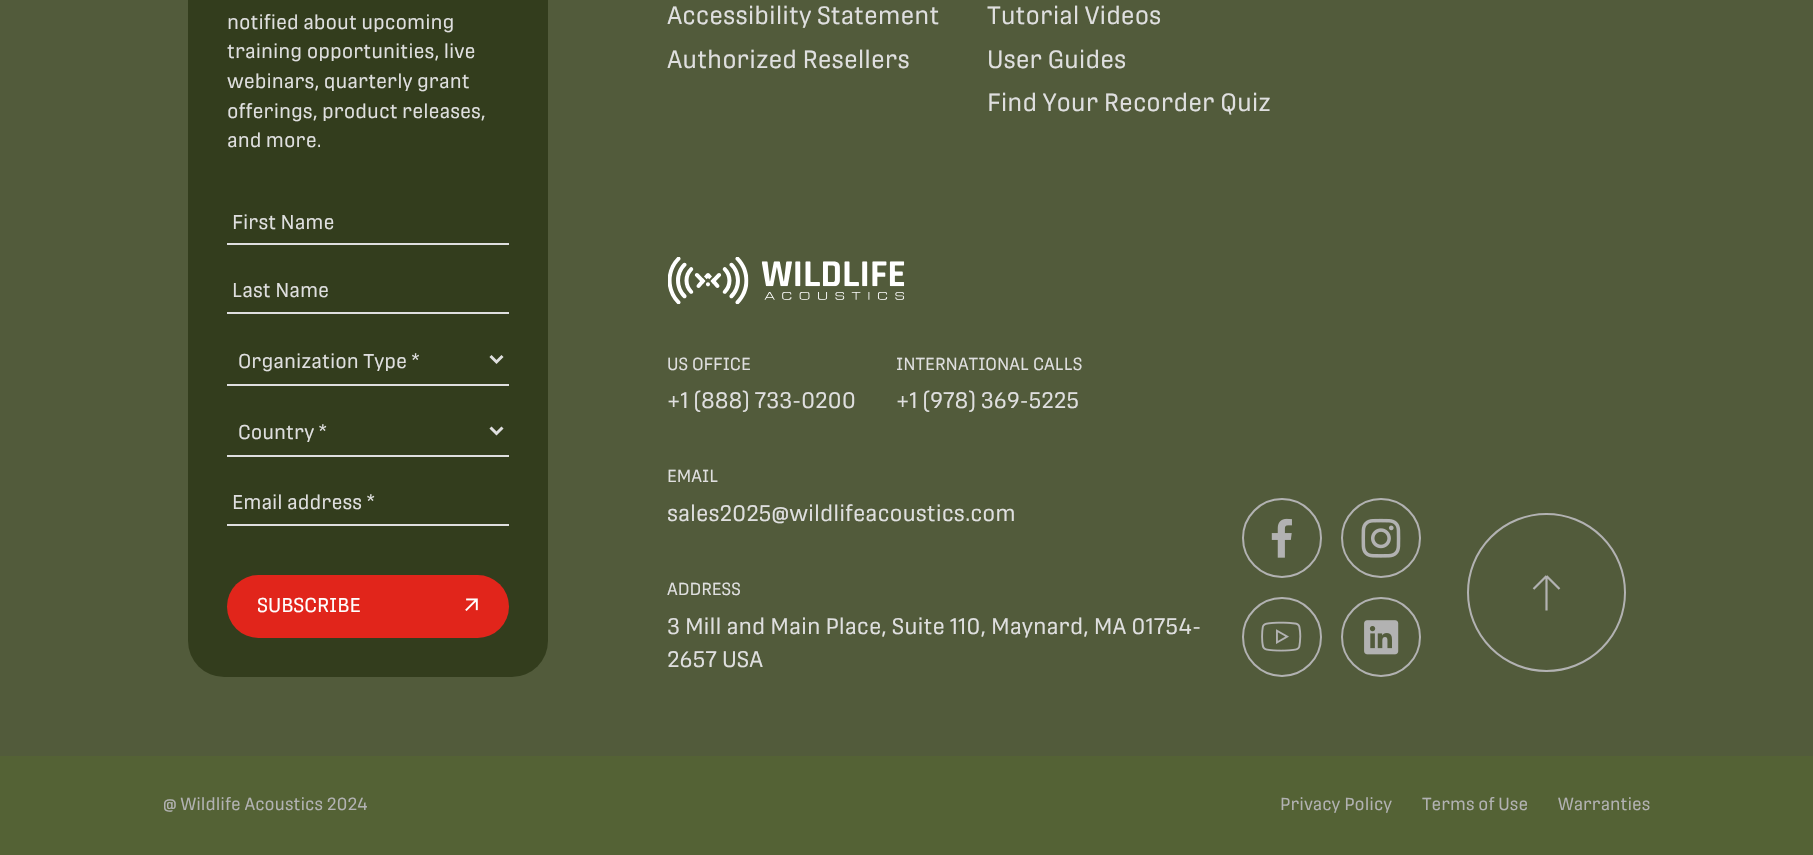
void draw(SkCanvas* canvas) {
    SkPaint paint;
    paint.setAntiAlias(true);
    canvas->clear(0xFF525B3B);
    paint.setColor(0xFF333D1D);
    canvas->drawRoundRect(SkRect::MakeXYWH(188, -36, 360, 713), 36, 36, paint);
    SkFont font1(fontMgr->matchFamilyStyle("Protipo", SkFontStyle::Normal()), 19.75f);
    font1.setSubpixel(true);
    paint.setColor(0xFFDFDFDF);
    canvas->drawString("notified about upcoming", 227, 29, font1, paint);
    canvas->drawString("training opportunities, live", 227, 58, font1, paint);
    canvas->drawString("webinars, quarterly grant", 227, 88, font1, paint);
    canvas->drawString("offerings, product releases,", 227, 118, font1, paint);
    canvas->drawString("and more.", 227, 147, font1, paint);
    canvas->drawRect(SkRect::MakeXYWH(227, 243, 282, 2), paint);
    canvas->drawString("First Name", 232, 229, font1, paint);
    canvas->drawRect(SkRect::MakeXYWH(227, 312, 282, 2), paint);
    canvas->drawString("Last Name", 232, 297, font1, paint);
    canvas->drawRect(SkRect::MakeXYWH(227, 384, 282, 2), paint);
    paint.setStyle(SkPaint::kStroke_Style);
    paint.setStrokeWidth(3);
    canvas->drawPath(SkPathBuilder().moveTo(490.5f, 356).lineTo(496.5f, 362).lineTo(502.5f, 356).detach(), paint);
    paint.setStyle(SkPaint::kFill_Style);
    canvas->drawString("Organization Type *", 238, 368, font1, paint);
    canvas->drawRect(SkRect::MakeXYWH(227, 455, 282, 2), paint);
    paint.setStyle(SkPaint::kStroke_Style);
    canvas->drawPath(SkPathBuilder().moveTo(490.5f, 427.5f).lineTo(496.5f, 433.5f).lineTo(502.5f, 427.5f).detach(), paint);
    paint.setStyle(SkPaint::kFill_Style);
    canvas->drawString("Country *", 238, 439, font1, paint);
    canvas->drawRect(SkRect::MakeXYWH(227, 524, 282, 2), paint);
    canvas->drawString("Email address *", 232, 509, font1, paint);
    paint.setColor(0xFFE1251B);
    canvas->drawRoundRect(SkRect::MakeXYWH(227, 575, 282, 63), 31.5f, 31.5f, paint);
    paint.setColor(0xFFFFFFFF);
    canvas->drawString("SUBSCRIBE", 257, 612, font1, paint);
    canvas->drawImageRect(SkImages::DeferredFromEncodedData(SkData::MakeFromFileName("img1.png")), SkRect::MakeXYWH(465, 598, 13, 13), SkSamplingOptions());
    SkFont font2(fontMgr->matchFamilyStyle("Protipo", SkFontStyle::Normal()), 24.75f);
    font2.setSubpixel(true);
    paint.setColor(0xFFDFDFDF);
    canvas->drawString("Accessibility Statement", 667, 24, font2, paint);
    canvas->drawString("Authorized Resellers", 667, 68, font2, paint);
    canvas->drawString("Tutorial Videos", 987, 24, font2, paint);
    canvas->drawString("User Guides", 987, 68, font2, paint);
    canvas->drawString("Find Your Recorder Quiz", 987, 111, font2, paint);
    canvas->drawImageRect(SkImages::DeferredFromEncodedData(SkData::MakeFromFileName("img2.png")), SkRect::MakeXYWH(668, 257, 237, 48), SkSamplingOptions());
    SkFont font3(fontMgr->matchFamilyStyle("Protipo", SkFontStyle::Normal()), 17.25f);
    font3.setSubpixel(true);
    canvas->drawString("US OFFICE", 667, 370, font3, paint);
    SkFont font4(fontMgr->matchFamilyStyle("Protipo", SkFontStyle::Normal()), 22.25f);
    font4.setSubpixel(true);
    canvas->drawString("+1 (888) 733-0200", 667, 408, font4, paint);
    canvas->drawString("INTERNATIONAL CALLS", 896, 370, font3, paint);
    canvas->drawString("+1 (978) 369-5225", 896, 408, font4, paint);
    canvas->drawString("EMAIL", 667, 482, font3, paint);
    canvas->drawString("sales2025@wildlifeacoustics.com", 667, 521, font4, paint);
    canvas->drawString("ADDRESS", 667, 595, font3, paint);
    canvas->drawString("3 Mill and Main Place, Suite 110, Maynard, MA 01754-", 667, 634, font4, paint);
    canvas->drawString("2657 USA", 667, 667, font4, paint);
    paint.setStyle(SkPaint::kStroke_Style);
    paint.setStrokeWidth(2);
    paint.setColor(0xFFB2B2B2);
    canvas->drawCircle(1282, 538, 39, paint);
    canvas->drawImageRect(SkImages::DeferredFromEncodedData(SkData::MakeFromFileName("img3.png")), SkRect::MakeXYWH(1271, 518, 21, 40), SkSamplingOptions());
    canvas->drawCircle(1381, 538, 39, paint);
    canvas->drawImageRect(SkImages::DeferredFromEncodedData(SkData::MakeFromFileName("img4.png")), SkRect::MakeXYWH(1361, 518, 40, 40), SkSamplingOptions());
    canvas->drawCircle(1282, 637, 39, paint);
    canvas->drawImageRect(SkImages::DeferredFromEncodedData(SkData::MakeFromFileName("img5.png")), SkRect::MakeXYWH(1261, 621, 41, 31), SkSamplingOptions());
    canvas->drawCircle(1381, 637, 39, paint);
    canvas->drawImageRect(SkImages::DeferredFromEncodedData(SkData::MakeFromFileName("img6.png")), SkRect::MakeXYWH(1364, 620, 35, 35), SkSamplingOptions());
    canvas->drawCircle(1546.5f, 592.5f, 78.5f, paint);
    paint.setStrokeWidth(2.2f);
    canvas->drawPath(SkPathBuilder().moveTo(1546.5f, 576).lineTo(1546.5f, 610.5f).moveTo(1546.5f, 576).lineTo(1533.5f, 589).moveTo(1546.5f, 576).lineTo(1559.5f, 589).detach(), paint);
    paint.setStyle(SkPaint::kFill_Style);
    paint.setColor(0xFF546235);
    canvas->drawRect(SkRect::MakeXYWH(0, 756, 1813, 99), paint);
    paint.setColor(0xFFB2B2B2);
    canvas->drawString("@ Wildlife Acoustics 2024", 163, 810, font3, paint);
    canvas->drawString("Privacy Policy", 1280, 810, font3, paint);
    canvas->drawString("Terms of Use", 1422, 810, font3, paint);
    canvas->drawString("Warranties", 1558, 810, font3, paint);
}
